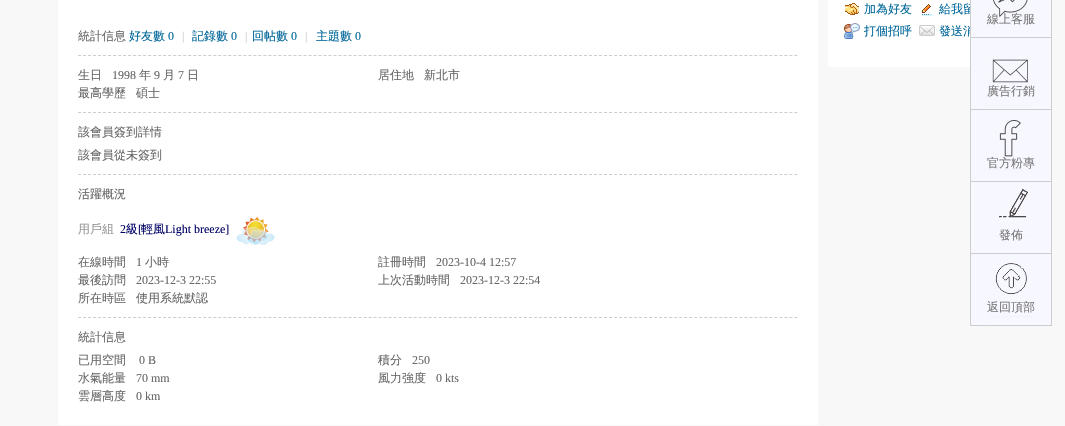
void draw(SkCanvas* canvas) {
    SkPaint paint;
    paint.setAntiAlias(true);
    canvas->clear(0xFFF8F8F8);
    paint.setColor(0xFFFFFFFF);
    canvas->drawRect(SkRect::MakeXYWH(828, 0, 142, 67), paint);
    canvas->drawImageRect(SkImages::DeferredFromEncodedData(SkData::MakeFromFileName("img1.png")), SkRect::MakeXYWH(845, 3, 14, 12), SkSamplingOptions());
    SkFont font1(fontMgr->matchFamilyStyle("WenQuanYi Zen Hei", SkFontStyle(500, SkFontStyle::kNormal_Width, SkFontStyle::kUpright_Slant)), 12);
    font1.setSubpixel(true);
    paint.setColor(0xFF006699);
    canvas->drawString("加為好友", 864, 13, font1, paint);
    canvas->drawImageRect(SkImages::DeferredFromEncodedData(SkData::MakeFromFileName("img2.png")), SkRect::MakeXYWH(922, 4, 11, 12), SkSamplingOptions());
    canvas->drawString("給我留", 939, 13, font1, paint);
    canvas->drawImageRect(SkImages::DeferredFromEncodedData(SkData::MakeFromFileName("img3.png")), SkRect::MakeXYWH(844, 23, 16, 16), SkSamplingOptions());
    canvas->drawString("打個招呼", 864, 35, font1, paint);
    canvas->drawImageRect(SkImages::DeferredFromEncodedData(SkData::MakeFromFileName("img4.png")), SkRect::MakeXYWH(919, 25, 16, 11), SkSamplingOptions());
    canvas->drawString("發送消", 939, 35, font1, paint);
    paint.setColor(0xFFFFFFFF);
    canvas->drawRect(SkRect::MakeXYWH(58, 0, 760, 425), paint);
    paint.setStyle(SkPaint::kStroke_Style);
    paint.setStrokeWidth(1);
    paint.setColor(0xFFCDCDCD);
    paint.setPathEffect(SkDashPathEffect::Make({{3, 2.01f}}, 0));
    canvas->drawPath(SkPathBuilder().moveTo(78, 112.5f).lineTo(798, 112.5f).detach(), paint);
    paint.setPathEffect(nullptr);
    paint.setPathEffect(SkDashPathEffect::Make({{3, 2.01f}}, 0));
    canvas->drawPath(SkPathBuilder().moveTo(78, 55.5f).lineTo(798, 55.5f).detach(), paint);
    paint.setPathEffect(nullptr);
    paint.setStyle(SkPaint::kFill_Style);
    paint.setColor(0xFF666666);
    canvas->drawString("統計信息", 78, 40, font1, paint);
    paint.setColor(0xFF006699);
    canvas->drawString("好友數", 129, 40, font1, paint);
    SkFont font2(fontMgr->matchFamilyStyle("Liberation Serif", SkFontStyle::Normal()), 12);
    font2.setSubpixel(true);
    canvas->drawString("0", 168, 40, font2, paint);
    paint.setColor(0xFFCCCCCC);
    canvas->drawString("|", 182, 40, font2, paint);
    paint.setColor(0xFF006699);
    canvas->drawString("記錄數", 192, 40, font1, paint);
    canvas->drawString("0", 231, 40, font2, paint);
    paint.setColor(0xFFCCCCCC);
    canvas->drawString("|", 245, 40, font2, paint);
    paint.setColor(0xFF006699);
    canvas->drawString("回帖數", 252, 40, font1, paint);
    canvas->drawString("0", 291, 40, font2, paint);
    paint.setColor(0xFFCCCCCC);
    canvas->drawString("|", 305, 40, font2, paint);
    paint.setColor(0xFF006699);
    canvas->drawString("主題數", 316, 40, font1, paint);
    canvas->drawString("0", 355, 40, font2, paint);
    paint.setColor(0xFF666666);
    canvas->drawString("生日", 78, 79, font1, paint);
    canvas->drawString("1998", 112, 79, font2, paint);
    canvas->drawString("年", 139, 79, font1, paint);
    canvas->drawString("9", 154, 79, font2, paint);
    canvas->drawString("月", 163, 79, font1, paint);
    canvas->drawString("7", 178, 79, font2, paint);
    canvas->drawString("日", 187, 79, font1, paint);
    canvas->drawString("居住地", 378, 79, font1, paint);
    canvas->drawString("新北市", 424, 79, font1, paint);
    canvas->drawString("最高學歷", 78, 97, font1, paint);
    canvas->drawString("碩士", 136, 97, font1, paint);
    paint.setStyle(SkPaint::kStroke_Style);
    paint.setColor(0xFFCDCDCD);
    paint.setPathEffect(SkDashPathEffect::Make({{3, 2.01f}}, 0));
    canvas->drawPath(SkPathBuilder().moveTo(78, 174.5f).lineTo(798, 174.5f).detach(), paint);
    paint.setPathEffect(nullptr);
    paint.setStyle(SkPaint::kFill_Style);
    paint.setColor(0xFF666666);
    canvas->drawString("該會員簽到詳情", 78, 136, font1, paint);
    canvas->drawString("該會員從未簽到", 78, 159, font1, paint);
    paint.setStyle(SkPaint::kStroke_Style);
    paint.setColor(0xFFCDCDCD);
    paint.setPathEffect(SkDashPathEffect::Make({{3, 2.01f}}, 0));
    canvas->drawPath(SkPathBuilder().moveTo(78, 317.5f).lineTo(798, 317.5f).detach(), paint);
    paint.setPathEffect(nullptr);
    paint.setStyle(SkPaint::kFill_Style);
    paint.setColor(0xFF666666);
    canvas->drawString("活躍概況", 78, 198, font1, paint);
    paint.setColor(0xFF999999);
    canvas->drawString("用戶組", 78, 233, font1, paint);
    paint.setColor(0xFF000066);
    canvas->drawString("2", 120, 233, font2, paint);
    canvas->drawString("級", 126, 233, font1, paint);
    canvas->drawString("[", 138, 233, font2, paint);
    canvas->drawString("輕風", 141, 233, font1, paint);
    canvas->drawString("Light breeze]", 165, 233, font2, paint);
    canvas->drawImageRect(SkImages::DeferredFromEncodedData(SkData::MakeFromFileName("img5.png")), SkRect::MakeXYWH(236, 216, 39, 29), SkSamplingOptions());
    paint.setColor(0xFF666666);
    canvas->drawString("在線時間", 78, 266, font1, paint);
    canvas->drawString("1", 136, 266, font2, paint);
    canvas->drawString("小時", 145, 266, font1, paint);
    canvas->drawString("註冊時間", 378, 266, font1, paint);
    canvas->drawString("2023-10-4 12:57", 436, 266, font2, paint);
    canvas->drawString("最後訪問", 78, 284, font1, paint);
    canvas->drawString("2023-12-3 22:55", 136, 284, font2, paint);
    canvas->drawString("上次活動時間", 378, 284, font1, paint);
    canvas->drawString("2023-12-3 22:54", 460, 284, font2, paint);
    canvas->drawString("所在時區", 78, 302, font1, paint);
    canvas->drawString("使用系統默認", 136, 302, font1, paint);
    canvas->drawString("統計信息", 78, 341, font1, paint);
    canvas->drawString("已用空間", 78, 364, font1, paint);
    canvas->drawString("0 B", 139, 364, font2, paint);
    canvas->drawString("積分", 378, 364, font1, paint);
    canvas->drawString("250", 412, 364, font2, paint);
    canvas->drawString("水氣能量", 78, 382, font1, paint);
    canvas->drawString("70 mm", 136, 382, font2, paint);
    canvas->drawString("風力強度", 378, 382, font1, paint);
    canvas->drawString("0 kts", 436, 382, font2, paint);
    canvas->drawString("雲層高度", 78, 400, font1, paint);
    canvas->drawString("0 km", 136, 400, font2, paint);
    paint.setColor(0xFFF7F7FF);
    canvas->drawRect(SkRect::MakeXYWH(971, 0, 22, 253), paint);
    canvas->drawImageRect(SkImages::DeferredFromEncodedData(SkData::MakeFromFileName("img6.png")), SkRect::MakeXYWH(993, 0, 58, 37), SkSamplingOptions());
    paint.setStyle(SkPaint::kStroke_Style);
    paint.setColor(0xFFCDCDCD);
    canvas->drawRect(SkRect::MakeXYWH(970.5f, -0.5f, 81, 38), paint);
    paint.setStyle(SkPaint::kFill_Style);
    paint.setColor(0xFF787878);
    canvas->drawString("線上客服", 987, 23, font1, paint);
    canvas->drawImageRect(SkImages::DeferredFromEncodedData(SkData::MakeFromFileName("img7.png")), SkRect::MakeXYWH(971, 38, 80, 71), SkSamplingOptions());
    paint.setStyle(SkPaint::kStroke_Style);
    paint.setColor(0xFFCDCDCD);
    canvas->drawRect(SkRect::MakeXYWH(970.5f, 37.5f, 81, 72), paint);
    paint.setStyle(SkPaint::kFill_Style);
    paint.setColor(0xFF787878);
    canvas->drawString("廣告行銷", 987, 95, font1, paint);
    canvas->drawImageRect(SkImages::DeferredFromEncodedData(SkData::MakeFromFileName("img8.png")), SkRect::MakeXYWH(971, 110, 80, 71), SkSamplingOptions());
    paint.setStyle(SkPaint::kStroke_Style);
    paint.setColor(0xFFCDCDCD);
    canvas->drawRect(SkRect::MakeXYWH(970.5f, 109.5f, 81, 72), paint);
    paint.setStyle(SkPaint::kFill_Style);
    paint.setColor(0xFF787878);
    canvas->drawString("官方粉專", 987, 167, font1, paint);
    canvas->drawImageRect(SkImages::DeferredFromEncodedData(SkData::MakeFromFileName("img9.png")), SkRect::MakeXYWH(972, 182, 79, 71), SkSamplingOptions());
    paint.setStyle(SkPaint::kStroke_Style);
    paint.setColor(0xFFCDCDCD);
    canvas->drawRect(SkRect::MakeXYWH(970.5f, 181.5f, 81, 72), paint);
    paint.setStyle(SkPaint::kFill_Style);
    paint.setColor(0xFF787878);
    canvas->drawString("發佈", 999, 239, font1, paint);
    canvas->drawImageRect(SkImages::DeferredFromEncodedData(SkData::MakeFromFileName("img10.png")), SkRect::MakeXYWH(971, 254, 80, 71), SkSamplingOptions());
    paint.setStyle(SkPaint::kStroke_Style);
    paint.setColor(0xFFCDCDCD);
    canvas->drawRect(SkRect::MakeXYWH(970.5f, 253.5f, 81, 72), paint);
    paint.setStyle(SkPaint::kFill_Style);
    paint.setColor(0xFF787878);
    canvas->drawString("返回頂部", 987, 311, font1, paint);
}
